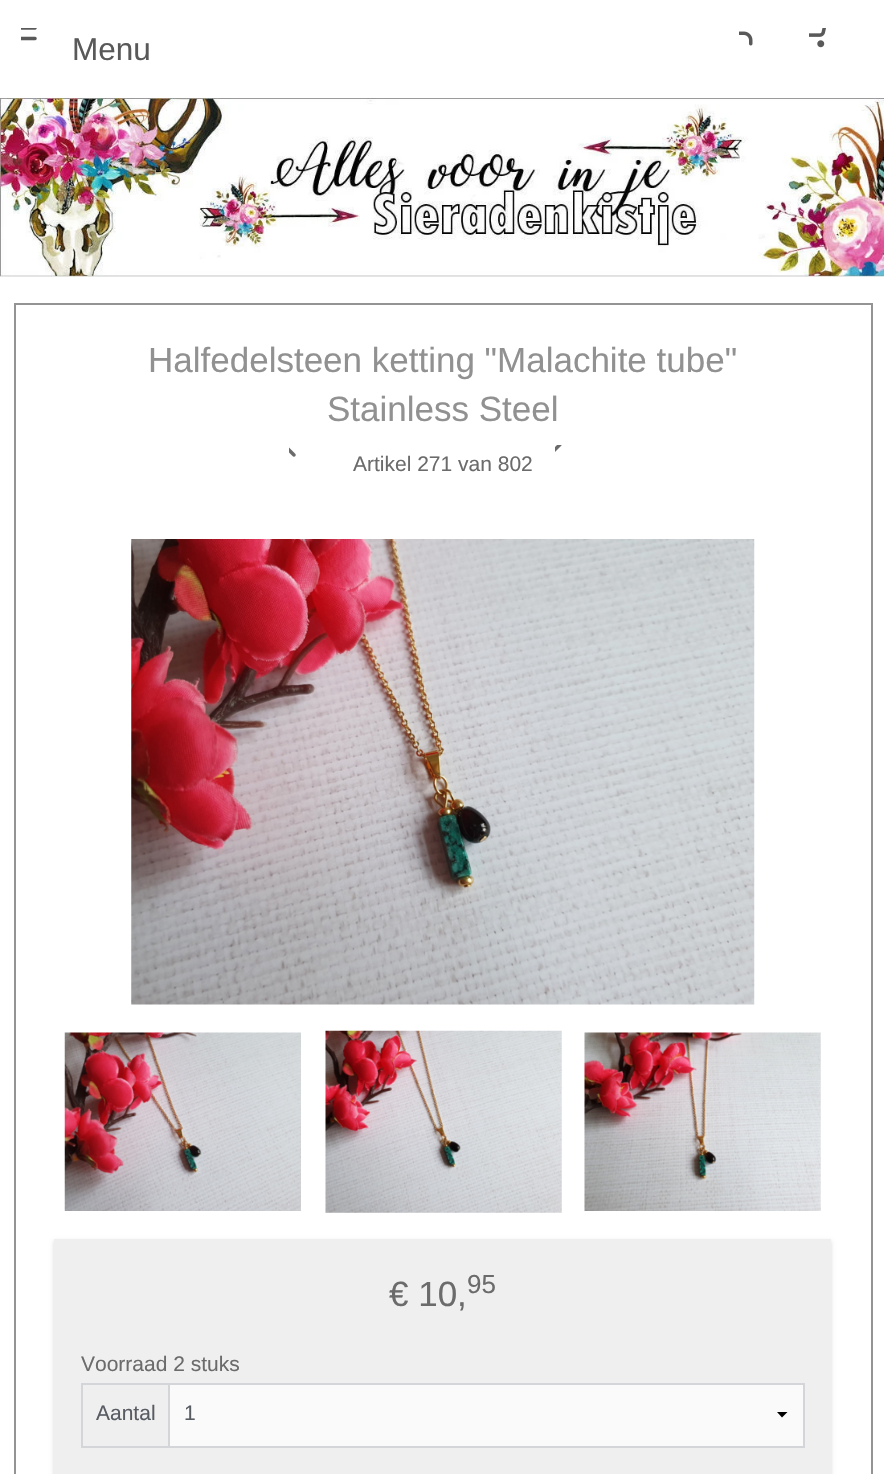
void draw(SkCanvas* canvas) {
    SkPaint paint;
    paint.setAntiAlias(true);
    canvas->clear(0xFFFFFFFF);
    canvas->drawImageRect(SkImages::DeferredFromEncodedData(SkData::MakeFromFileName("img1.png")), SkRect::MakeXYWH(21, 28, 16, 13), SkSamplingOptions());
    SkFont font1(fontMgr->matchFamilyStyle("Liberation Sans", SkFontStyle::Normal()), 31.5f);
    font1.setSubpixel(true);
    paint.setColor(0xFF595959);
    canvas->drawString("Menu", 72, 60, font1, paint);
    canvas->drawImageRect(SkImages::DeferredFromEncodedData(SkData::MakeFromFileName("img2.png")), SkRect::MakeXYWH(739, 31, 14, 15), SkSamplingOptions());
    canvas->drawImageRect(SkImages::DeferredFromEncodedData(SkData::MakeFromFileName("img3.png")), SkRect::MakeXYWH(809, 28, 17, 20), SkSamplingOptions());
    canvas->drawImageRect(SkImages::DeferredFromEncodedData(SkData::MakeFromFileName("img4.png")), SkRect::MakeXYWH(0, 98, 884, 179), SkSamplingOptions());
    paint.setStyle(SkPaint::kStroke_Style);
    paint.setStrokeWidth(2);
    paint.setColor(0xFF949494);
    canvas->drawRect(SkRect::MakeXYWH(15, 304, 857, 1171), paint);
    SkFont font2(fontMgr->matchFamilyStyle("Liberation Sans", SkFontStyle::Normal()), 35);
    font2.setSubpixel(true);
    paint.setStyle(SkPaint::kFill_Style);
    paint.setColor(0xFF919191);
    canvas->drawString("Halfedelsteen ketting \"Malachite tube\"", 148, 372, font2, paint);
    canvas->drawString("Stainless Steel", 327, 421, font2, paint);
    canvas->drawImageRect(SkImages::DeferredFromEncodedData(SkData::MakeFromFileName("img5.png")), SkRect::MakeXYWH(289, 447, 7, 10), SkSamplingOptions());
    canvas->drawImageRect(SkImages::DeferredFromEncodedData(SkData::MakeFromFileName("img6.png")), SkRect::MakeXYWH(555, 445, 7, 7), SkSamplingOptions());
    SkFont font3(fontMgr->matchFamilyStyle("Liberation Sans", SkFontStyle::Normal()), 21);
    font3.setSubpixel(true);
    paint.setColor(0xFF6B6B6B);
    canvas->drawString("Artikel 271 van 802", 353, 471, font3, paint);
    canvas->drawImageRect(SkImages::DeferredFromEncodedData(SkData::MakeFromFileName("img7.png")), SkRect::MakeXYWH(131, 539, 624, 466), SkSamplingOptions());
    canvas->drawImageRect(SkImages::DeferredFromEncodedData(SkData::MakeFromFileName("img8.png")), SkRect::MakeXYWH(64, 1032, 237, 179), SkSamplingOptions());
    canvas->drawImageRect(SkImages::DeferredFromEncodedData(SkData::MakeFromFileName("img9.png")), SkRect::MakeXYWH(325, 1030, 237, 183), SkSamplingOptions());
    canvas->drawImageRect(SkImages::DeferredFromEncodedData(SkData::MakeFromFileName("img10.png")), SkRect::MakeXYWH(584, 1032, 237, 179), SkSamplingOptions());
    paint.setColor(0x26000000);
    paint.setMaskFilter(SkMaskFilter::MakeBlur(kNormal_SkBlurStyle, 2));
    canvas->drawRect(SkRect::MakeXYWH(54, 1241, 777, 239), paint);
    paint.setMaskFilter(nullptr);
    paint.setColor(0xFFEFEFEF);
    canvas->drawRect(SkRect::MakeXYWH(54, 1239, 777, 235), paint);
    paint.setColor(0xFF6B6B6B);
    canvas->drawString("€ 10,", 389, 1306, font2, paint);
    SkFont font4(fontMgr->matchFamilyStyle("Liberation Sans", SkFontStyle::Normal()), 26);
    font4.setSubpixel(true);
    canvas->drawString("95", 467, 1293, font4, paint);
    canvas->drawString("Voorraad 2 stuks", 81, 1371, font3, paint);
    paint.setColor(0xFFD3D5D9);
    canvas->drawRect(SkRect::MakeXYWH(168, 1383, 2, 63), paint);
    canvas->drawRect(SkRect::MakeXYWH(81, 1383, 724, 2), paint);
    canvas->drawRect(SkRect::MakeXYWH(803, 1383, 2, 64), paint);
    canvas->drawRect(SkRect::MakeXYWH(81, 1446, 724, 2), paint);
    canvas->drawRect(SkRect::MakeXYWH(81, 1383, 2, 64), paint);
    paint.setColor(0xFF575B62);
    canvas->drawString("Aantal", 96, 1420, font3, paint);
    paint.setColor(0xFFFAFAFA);
    canvas->drawRect(SkRect::MakeXYWH(170, 1385, 633, 61), paint);
    paint.setColor(0xFF000000);
    canvas->drawPath(SkPathBuilder().moveTo(787.5f, 1412).lineTo(782, 1417.5f).lineTo(777, 1412).close().detach(), paint);
    paint.setColor(0xFF575B62);
    canvas->drawString("1", 184, 1420, font3, paint);
}
